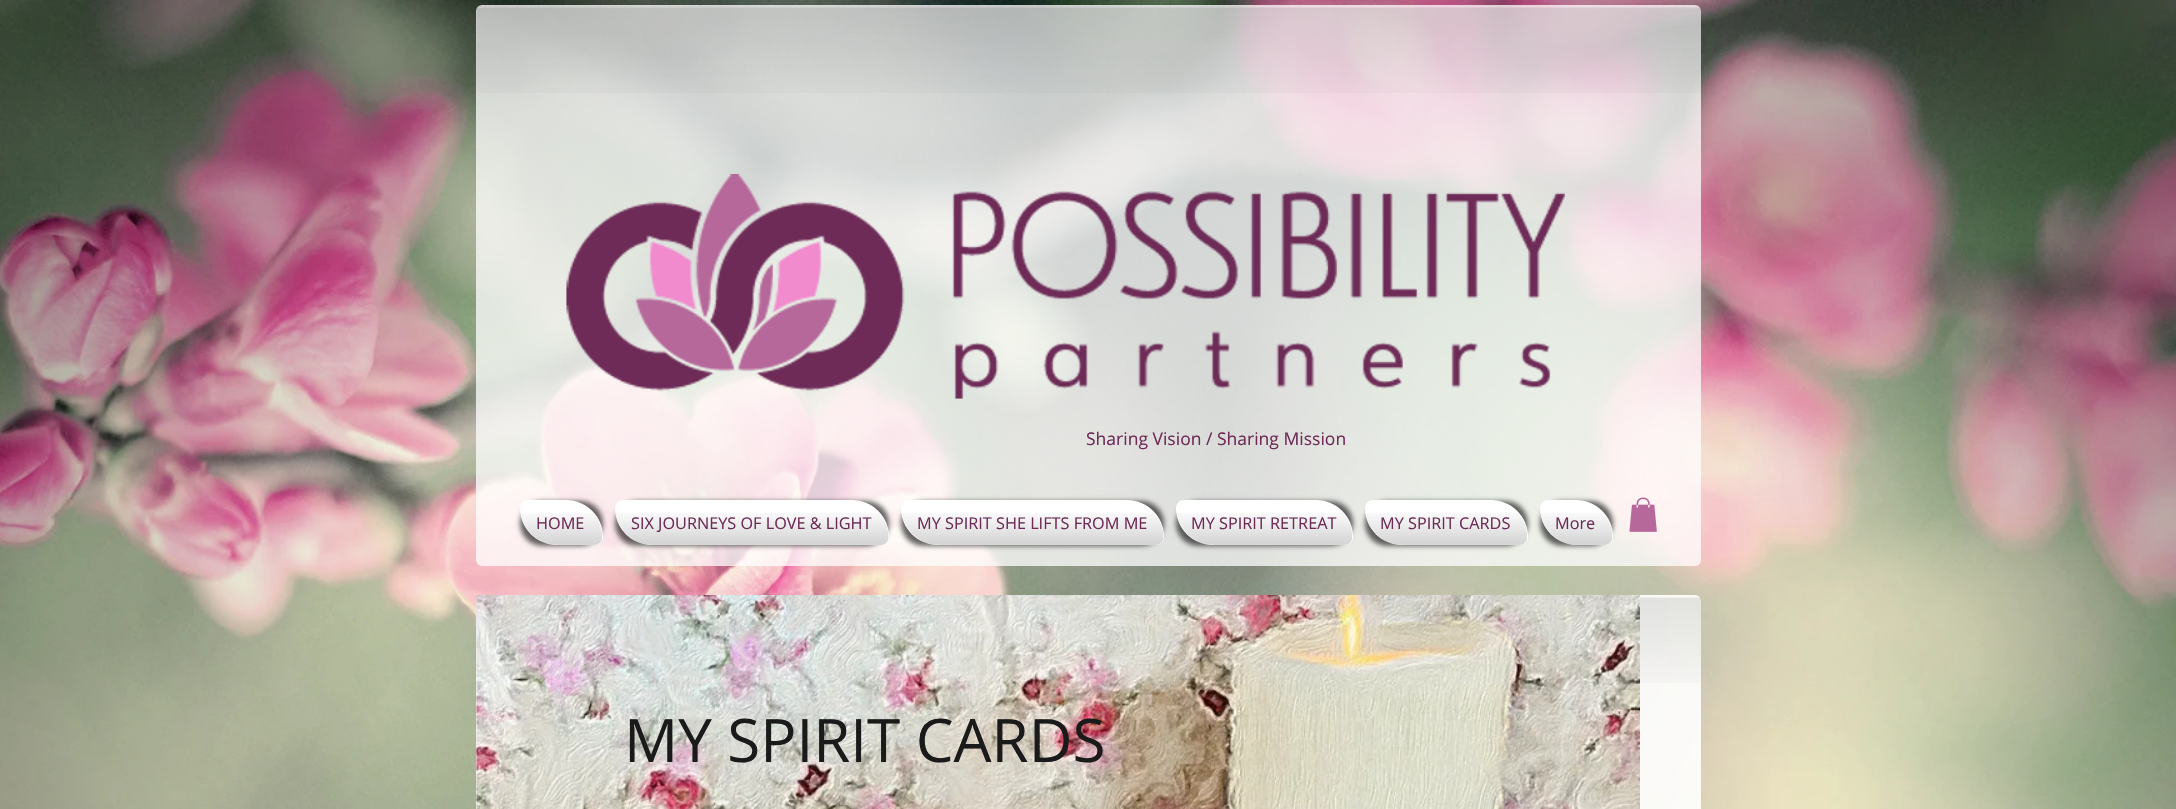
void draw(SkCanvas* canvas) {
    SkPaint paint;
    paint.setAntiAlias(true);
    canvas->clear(0xFFFFFFFF);
    canvas->drawImageRect(SkImages::DeferredFromEncodedData(SkData::MakeFromFileName("img1.png")), SkRect::MakeXYWH(0, 0, 2176, 809), SkSamplingOptions());
    paint.setColor(0xBFFFFFFF);
    canvas->drawRoundRect(SkRect::MakeXYWH(476, 5, 1225, 561), 6, 6, paint);
    canvas->drawImageRect(SkImages::DeferredFromEncodedData(SkData::MakeFromFileName("img2.png")), SkRect::MakeXYWH(476, 7, 1225, 86), SkSamplingOptions());
    canvas->drawImageRect(SkImages::DeferredFromEncodedData(SkData::MakeFromFileName("img3.png")), SkRect::MakeXYWH(566, 173, 999, 226), SkSamplingOptions());
    SkFont font1(fontMgr->matchFamilyStyle("Open Sans", SkFontStyle::Normal()), 17.5f);
    font1.setSubpixel(true);
    paint.setColor(0xFF6E2B57);
    canvas->drawString("Sharing Vision / Sharing Mission", 1086, 445, font1, paint);
    paint.setColor(0x99000000);
    paint.setMaskFilter(SkMaskFilter::MakeBlur(kNormal_SkBlurStyle, 2.5f));
    canvas->drawRoundRect(SkRect::MakeXYWH(520, 501, 83, 45), 38, 38, paint);
    paint.setMaskFilter(nullptr);
    paint.setColor(0xFFFFFFFF);
    canvas->drawPath(SkPathBuilder().moveTo(528, 500).lineTo(566, 500).cubicTo(586.5f, 500, 603, 516.5f, 603, 537).cubicTo(603, 541.5f, 599.5f, 545, 595, 545).lineTo(557, 545).cubicTo(536.5f, 545, 520, 528.5f, 520, 508).cubicTo(520, 503.5f, 523.5f, 500, 528, 500).close().detach(), paint);
    canvas->drawImageRect(SkImages::DeferredFromEncodedData(SkData::MakeFromFileName("img4.png")), SkRect::MakeXYWH(521, 513, 81, 32), SkSamplingOptions());
    SkFont font2(fontMgr->matchFamilyStyle("Open Sans", SkFontStyle::Normal()), 16.25f);
    font2.setSubpixel(true);
    paint.setColor(0xFF6E2B57);
    canvas->drawString("HOME", 536, 529, font2, paint);
    paint.setColor(0x99000000);
    paint.setMaskFilter(SkMaskFilter::MakeBlur(kNormal_SkBlurStyle, 2.5f));
    canvas->drawRoundRect(SkRect::MakeXYWH(615, 501, 274, 45), 38, 38, paint);
    paint.setMaskFilter(nullptr);
    paint.setColor(0xFFFFFFFF);
    canvas->drawPath(SkPathBuilder().moveTo(623, 500).lineTo(852, 500).cubicTo(872.5f, 500, 889, 516.5f, 889, 537).cubicTo(889, 541.5f, 885.5f, 545, 881, 545).lineTo(652, 545).cubicTo(631.5f, 545, 615, 528.5f, 615, 508).cubicTo(615, 503.5f, 618.5f, 500, 623, 500).close().detach(), paint);
    canvas->drawImageRect(SkImages::DeferredFromEncodedData(SkData::MakeFromFileName("img5.png")), SkRect::MakeXYWH(616, 513, 273, 32), SkSamplingOptions());
    paint.setColor(0xFF6E2B57);
    canvas->drawString("SIX JOURNEYS OF LOVE & LIGHT", 631, 529, font2, paint);
    paint.setColor(0x99000000);
    paint.setMaskFilter(SkMaskFilter::MakeBlur(kNormal_SkBlurStyle, 2.5f));
    canvas->drawRoundRect(SkRect::MakeXYWH(901, 501, 263, 45), 38, 38, paint);
    paint.setMaskFilter(nullptr);
    paint.setColor(0xFFFFFFFF);
    canvas->drawPath(SkPathBuilder().moveTo(909, 500).lineTo(1127, 500).cubicTo(1147.5f, 500, 1164, 516.5f, 1164, 537).cubicTo(1164, 541.5f, 1160.5f, 545, 1156, 545).lineTo(938, 545).cubicTo(917.5f, 545, 901, 528.5f, 901, 508).cubicTo(901, 503.5f, 904.5f, 500, 909, 500).close().detach(), paint);
    canvas->drawImageRect(SkImages::DeferredFromEncodedData(SkData::MakeFromFileName("img6.png")), SkRect::MakeXYWH(902, 513, 262, 32), SkSamplingOptions());
    paint.setColor(0xFF6E2B57);
    canvas->drawString("MY SPIRIT SHE LIFTS FROM ME", 917, 529, font2, paint);
    paint.setColor(0x99000000);
    paint.setMaskFilter(SkMaskFilter::MakeBlur(kNormal_SkBlurStyle, 2.5f));
    canvas->drawRoundRect(SkRect::MakeXYWH(1176, 501, 177, 45), 38, 38, paint);
    paint.setMaskFilter(nullptr);
    paint.setColor(0xFFFFFFFF);
    canvas->drawPath(SkPathBuilder().moveTo(1184, 500).lineTo(1316, 500).cubicTo(1336.5f, 500, 1353, 516.5f, 1353, 537).cubicTo(1353, 541.5f, 1349.5f, 545, 1345, 545).lineTo(1213, 545).cubicTo(1192.5f, 545, 1176, 528.5f, 1176, 508).cubicTo(1176, 503.5f, 1179.5f, 500, 1184, 500).close().detach(), paint);
    canvas->drawImageRect(SkImages::DeferredFromEncodedData(SkData::MakeFromFileName("img7.png")), SkRect::MakeXYWH(1177, 513, 175, 32), SkSamplingOptions());
    paint.setColor(0xFF6E2B57);
    canvas->drawString("MY SPIRIT RETREAT", 1191, 529, font2, paint);
    paint.setColor(0x99000000);
    paint.setMaskFilter(SkMaskFilter::MakeBlur(kNormal_SkBlurStyle, 2.5f));
    canvas->drawRoundRect(SkRect::MakeXYWH(1365, 501, 163, 45), 38, 38, paint);
    paint.setMaskFilter(nullptr);
    paint.setColor(0xFFFFFFFF);
    canvas->drawPath(SkPathBuilder().moveTo(1373, 500).lineTo(1491, 500).cubicTo(1511.5f, 500, 1528, 516.5f, 1528, 537).cubicTo(1528, 541.5f, 1524.5f, 545, 1520, 545).lineTo(1402, 545).cubicTo(1381.5f, 545, 1365, 528.5f, 1365, 508).cubicTo(1365, 503.5f, 1368.5f, 500, 1373, 500).close().detach(), paint);
    canvas->drawImageRect(SkImages::DeferredFromEncodedData(SkData::MakeFromFileName("img8.png")), SkRect::MakeXYWH(1366, 513, 161, 32), SkSamplingOptions());
    paint.setColor(0xFF6E2B57);
    canvas->drawString("MY SPIRIT CARDS", 1380, 529, font2, paint);
    paint.setColor(0x99000000);
    paint.setMaskFilter(SkMaskFilter::MakeBlur(kNormal_SkBlurStyle, 2.5f));
    canvas->drawRoundRect(SkRect::MakeXYWH(1540, 501, 73, 45), 38, 38, paint);
    paint.setMaskFilter(nullptr);
    paint.setColor(0xFFFFFFFF);
    canvas->drawPath(SkPathBuilder().moveTo(1548, 500).lineTo(1576, 500).cubicTo(1596.5f, 500, 1613, 516.5f, 1613, 537).cubicTo(1613, 541.5f, 1609.5f, 545, 1605, 545).lineTo(1577, 545).cubicTo(1556.5f, 545, 1540, 528.5f, 1540, 508).cubicTo(1540, 503.5f, 1543.5f, 500, 1548, 500).close().detach(), paint);
    canvas->drawImageRect(SkImages::DeferredFromEncodedData(SkData::MakeFromFileName("img9.png")), SkRect::MakeXYWH(1541, 513, 71, 32), SkSamplingOptions());
    paint.setColor(0xFF6E2B57);
    canvas->drawString("More", 1555, 529, font2, paint);
    canvas->drawImageRect(SkImages::DeferredFromEncodedData(SkData::MakeFromFileName("img10.png")), SkRect::MakeXYWH(1629, 497, 28, 35), SkSamplingOptions());
    paint.setColor(0xE6FFFFFF);
    canvas->drawRoundRect(SkRect::MakeXYWH(476, 595, 1225, 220), 6, 6, paint);
    canvas->drawImageRect(SkImages::DeferredFromEncodedData(SkData::MakeFromFileName("img11.png")), SkRect::MakeXYWH(476, 597, 1225, 86), SkSamplingOptions());
    canvas->drawImageRect(SkImages::DeferredFromEncodedData(SkData::MakeFromFileName("img12.png")), SkRect::MakeXYWH(476, 595, 1164, 214), SkSamplingOptions());
    SkFont font3(fontMgr->matchFamilyStyle("Open Sans", SkFontStyle::Normal()), 60);
    font3.setSubpixel(true);
    paint.setColor(0xFF1A1A1A);
    canvas->drawString("MY SPIRIT CARDS", 624, 762, font3, paint);
}
